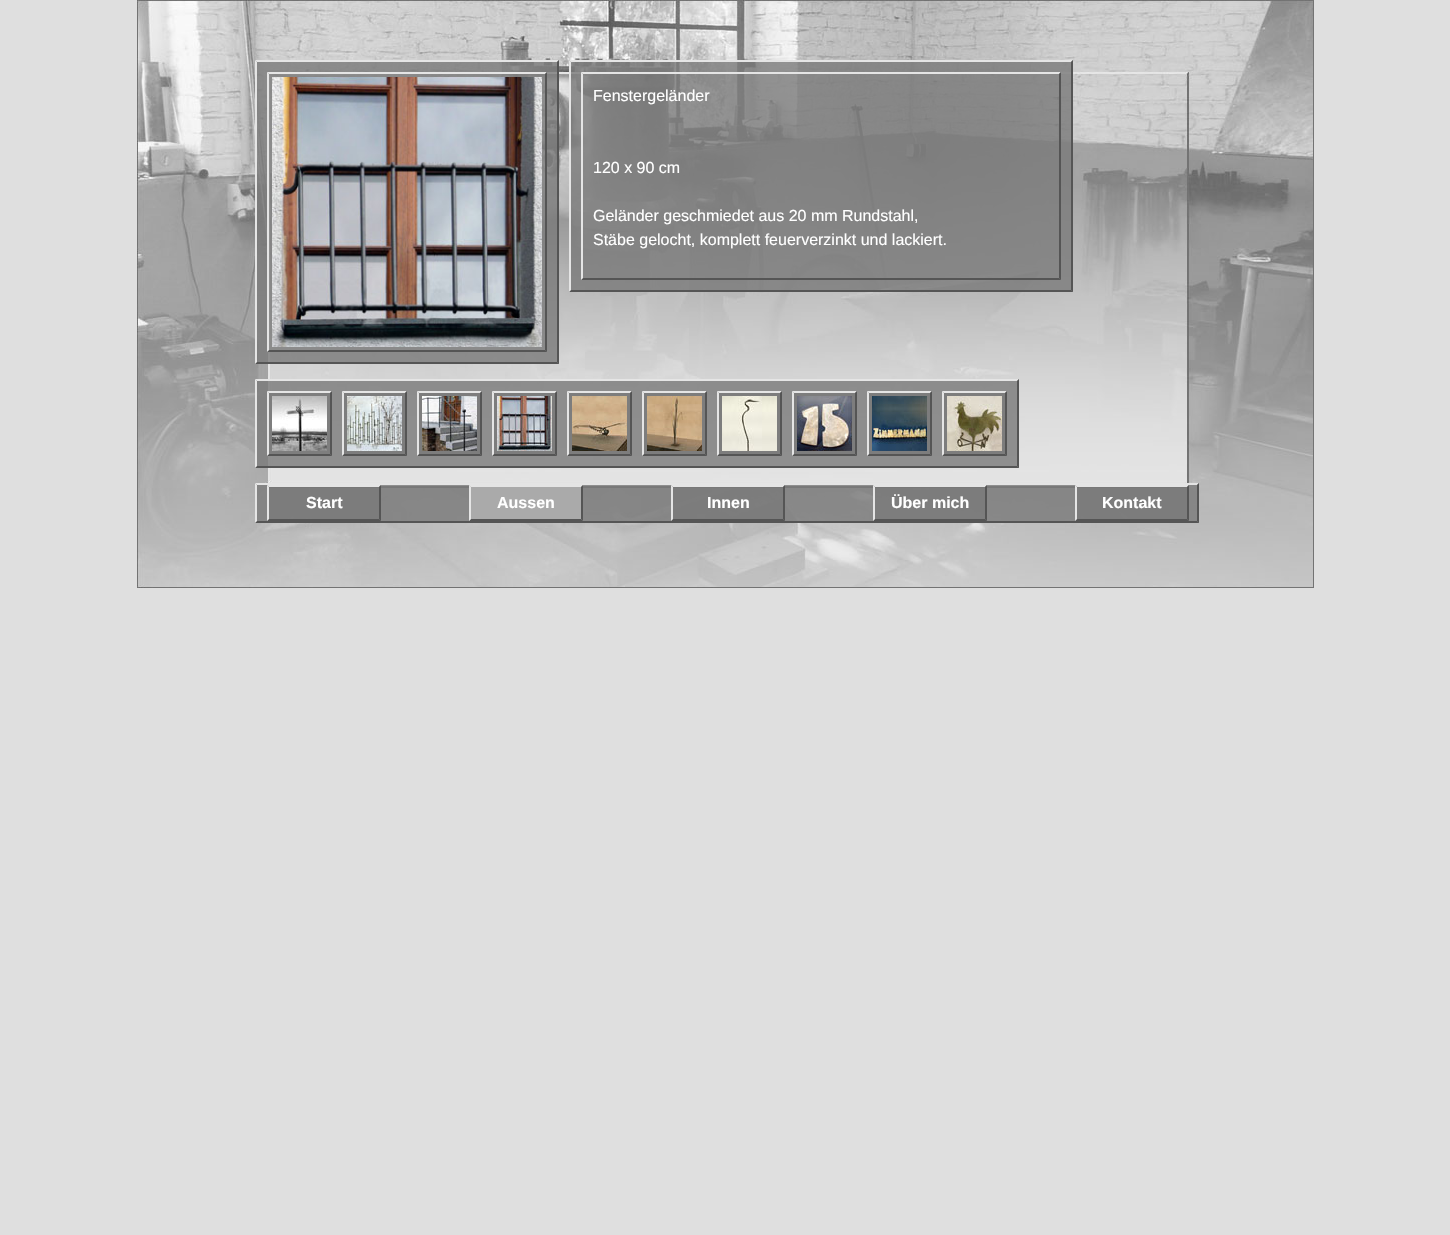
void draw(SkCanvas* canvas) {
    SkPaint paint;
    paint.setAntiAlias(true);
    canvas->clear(0xFFDFDFDF);
    canvas->drawImageRect(SkImages::DeferredFromEncodedData(SkData::MakeFromFileName("img1.png")), SkRect::MakeXYWH(137, 0, 1177, 588), SkSamplingOptions());
    paint.setColor(0xCC797979);
    canvas->drawRect(SkRect::MakeXYWH(255, 60, 304, 304), paint);
    paint.setColor(0xFFE5E5E5);
    canvas->drawPath(SkPathBuilder().moveTo(255, 60).lineTo(559, 60).lineTo(557, 62).lineTo(257, 62).close().detach(), paint);
    paint.setColor(0xFF555555);
    canvas->drawPath(SkPathBuilder().moveTo(559, 60).lineTo(559, 364).lineTo(557, 362).lineTo(557, 62).close().detach(), paint);
    canvas->drawPath(SkPathBuilder().moveTo(559, 364).lineTo(255, 364).lineTo(257, 362).lineTo(557, 362).close().detach(), paint);
    paint.setColor(0xFFE5E5E5);
    canvas->drawPath(SkPathBuilder().moveTo(255, 364).lineTo(255, 60).lineTo(257, 62).lineTo(257, 362).close().detach(), paint);
    canvas->drawPath(SkPathBuilder().moveTo(267, 72).lineTo(547, 72).lineTo(545, 74).lineTo(269, 74).close().detach(), paint);
    paint.setColor(0xFF555555);
    canvas->drawPath(SkPathBuilder().moveTo(547, 72).lineTo(547, 352).lineTo(545, 350).lineTo(545, 74).close().detach(), paint);
    canvas->drawPath(SkPathBuilder().moveTo(547, 352).lineTo(267, 352).lineTo(269, 350).lineTo(545, 350).close().detach(), paint);
    paint.setColor(0xFFE5E5E5);
    canvas->drawPath(SkPathBuilder().moveTo(267, 352).lineTo(267, 72).lineTo(269, 74).lineTo(269, 350).close().detach(), paint);
    canvas->drawImageRect(SkImages::DeferredFromEncodedData(SkData::MakeFromFileName("img2.png")), SkRect::MakeXYWH(272, 77, 270, 270), SkSamplingOptions());
    paint.setColor(0xCC797979);
    canvas->drawRect(SkRect::MakeXYWH(569, 60, 504, 232), paint);
    paint.setColor(0xFFE5E5E5);
    canvas->drawPath(SkPathBuilder().moveTo(569, 60).lineTo(1073, 60).lineTo(1071, 62).lineTo(571, 62).close().detach(), paint);
    paint.setColor(0xFF555555);
    canvas->drawPath(SkPathBuilder().moveTo(1073, 60).lineTo(1073, 292).lineTo(1071, 290).lineTo(1071, 62).close().detach(), paint);
    canvas->drawPath(SkPathBuilder().moveTo(1073, 292).lineTo(569, 292).lineTo(571, 290).lineTo(1071, 290).close().detach(), paint);
    paint.setColor(0xFFE5E5E5);
    canvas->drawPath(SkPathBuilder().moveTo(569, 292).lineTo(569, 60).lineTo(571, 62).lineTo(571, 290).close().detach(), paint);
    canvas->drawPath(SkPathBuilder().moveTo(581, 72).lineTo(1061, 72).lineTo(1059, 74).lineTo(583, 74).close().detach(), paint);
    paint.setColor(0xFF555555);
    canvas->drawPath(SkPathBuilder().moveTo(1061, 72).lineTo(1061, 280).lineTo(1059, 278).lineTo(1059, 74).close().detach(), paint);
    canvas->drawPath(SkPathBuilder().moveTo(1061, 280).lineTo(581, 280).lineTo(583, 278).lineTo(1059, 278).close().detach(), paint);
    paint.setColor(0xFFE5E5E5);
    canvas->drawPath(SkPathBuilder().moveTo(581, 280).lineTo(581, 72).lineTo(583, 74).lineTo(583, 278).close().detach(), paint);
    SkFont font1(fontMgr->matchFamilyStyle("Liberation Sans", SkFontStyle::Normal()), 16);
    font1.setSubpixel(true);
    paint.setColor(0xFFFFFFFF);
    canvas->drawString("Fenstergeländer", 593, 101, font1, paint);
    canvas->drawString("120 x 90 cm", 593, 173, font1, paint);
    canvas->drawString("Geländer geschmiedet aus 20 mm Rundstahl,", 593, 221, font1, paint);
    canvas->drawString("Stäbe gelocht, komplett feuerverzinkt und lackiert.", 593, 245, font1, paint);
    paint.setColor(0xCC797979);
    canvas->drawRect(SkRect::MakeXYWH(255, 379, 764, 89), paint);
    paint.setColor(0xFFE5E5E5);
    canvas->drawPath(SkPathBuilder().moveTo(255, 379).lineTo(1019, 379).lineTo(1017, 381).lineTo(257, 381).close().detach(), paint);
    paint.setColor(0xFF555555);
    canvas->drawPath(SkPathBuilder().moveTo(1019, 379).lineTo(1019, 468).lineTo(1017, 466).lineTo(1017, 381).close().detach(), paint);
    canvas->drawPath(SkPathBuilder().moveTo(1019, 468).lineTo(255, 468).lineTo(257, 466).lineTo(1017, 466).close().detach(), paint);
    paint.setColor(0xFFE5E5E5);
    canvas->drawPath(SkPathBuilder().moveTo(255, 468).lineTo(255, 379).lineTo(257, 381).lineTo(257, 466).close().detach(), paint);
    canvas->drawPath(SkPathBuilder().moveTo(267, 391).lineTo(332, 391).lineTo(330, 393).lineTo(269, 393).close().detach(), paint);
    paint.setColor(0xFF555555);
    canvas->drawPath(SkPathBuilder().moveTo(332, 391).lineTo(332, 456).lineTo(330, 454).lineTo(330, 393).close().detach(), paint);
    canvas->drawPath(SkPathBuilder().moveTo(332, 456).lineTo(267, 456).lineTo(269, 454).lineTo(330, 454).close().detach(), paint);
    paint.setColor(0xFFE5E5E5);
    canvas->drawPath(SkPathBuilder().moveTo(267, 456).lineTo(267, 391).lineTo(269, 393).lineTo(269, 454).close().detach(), paint);
    paint.setColor(0xCC797979);
    canvas->drawRect(SkRect::MakeXYWH(269, 393, 61, 61), paint);
    canvas->drawImageRect(SkImages::DeferredFromEncodedData(SkData::MakeFromFileName("img3.png")), SkRect::MakeXYWH(272, 396, 55, 55), SkSamplingOptions());
    paint.setColor(0xFFE5E5E5);
    canvas->drawPath(SkPathBuilder().moveTo(342, 391).lineTo(407, 391).lineTo(405, 393).lineTo(344, 393).close().detach(), paint);
    paint.setColor(0xFF555555);
    canvas->drawPath(SkPathBuilder().moveTo(407, 391).lineTo(407, 456).lineTo(405, 454).lineTo(405, 393).close().detach(), paint);
    canvas->drawPath(SkPathBuilder().moveTo(407, 456).lineTo(342, 456).lineTo(344, 454).lineTo(405, 454).close().detach(), paint);
    paint.setColor(0xFFE5E5E5);
    canvas->drawPath(SkPathBuilder().moveTo(342, 456).lineTo(342, 391).lineTo(344, 393).lineTo(344, 454).close().detach(), paint);
    paint.setColor(0xFF7D7D7D);
    canvas->drawRect(SkRect::MakeXYWH(344, 393, 61, 61), paint);
    canvas->drawImageRect(SkImages::DeferredFromEncodedData(SkData::MakeFromFileName("img4.png")), SkRect::MakeXYWH(347, 396, 55, 55), SkSamplingOptions());
    paint.setColor(0xFFE5E5E5);
    canvas->drawPath(SkPathBuilder().moveTo(417, 391).lineTo(482, 391).lineTo(480, 393).lineTo(419, 393).close().detach(), paint);
    paint.setColor(0xFF555555);
    canvas->drawPath(SkPathBuilder().moveTo(482, 391).lineTo(482, 456).lineTo(480, 454).lineTo(480, 393).close().detach(), paint);
    canvas->drawPath(SkPathBuilder().moveTo(482, 456).lineTo(417, 456).lineTo(419, 454).lineTo(480, 454).close().detach(), paint);
    paint.setColor(0xFFE5E5E5);
    canvas->drawPath(SkPathBuilder().moveTo(417, 456).lineTo(417, 391).lineTo(419, 393).lineTo(419, 454).close().detach(), paint);
    paint.setColor(0xFF7D7D7D);
    canvas->drawRect(SkRect::MakeXYWH(419, 393, 61, 61), paint);
    canvas->drawImageRect(SkImages::DeferredFromEncodedData(SkData::MakeFromFileName("img5.png")), SkRect::MakeXYWH(422, 396, 55, 55), SkSamplingOptions());
    paint.setColor(0xFFE5E5E5);
    canvas->drawPath(SkPathBuilder().moveTo(492, 391).lineTo(557, 391).lineTo(555, 393).lineTo(494, 393).close().detach(), paint);
    paint.setColor(0xFF555555);
    canvas->drawPath(SkPathBuilder().moveTo(557, 391).lineTo(557, 456).lineTo(555, 454).lineTo(555, 393).close().detach(), paint);
    canvas->drawPath(SkPathBuilder().moveTo(557, 456).lineTo(492, 456).lineTo(494, 454).lineTo(555, 454).close().detach(), paint);
    paint.setColor(0xFFE5E5E5);
    canvas->drawPath(SkPathBuilder().moveTo(492, 456).lineTo(492, 391).lineTo(494, 393).lineTo(494, 454).close().detach(), paint);
    paint.setColor(0xFF7D7D7D);
    canvas->drawRect(SkRect::MakeXYWH(494, 393, 61, 61), paint);
    canvas->drawImageRect(SkImages::DeferredFromEncodedData(SkData::MakeFromFileName("img6.png")), SkRect::MakeXYWH(497, 396, 55, 55), SkSamplingOptions());
    paint.setColor(0xFFE5E5E5);
    canvas->drawPath(SkPathBuilder().moveTo(567, 391).lineTo(632, 391).lineTo(630, 393).lineTo(569, 393).close().detach(), paint);
    paint.setColor(0xFF555555);
    canvas->drawPath(SkPathBuilder().moveTo(632, 391).lineTo(632, 456).lineTo(630, 454).lineTo(630, 393).close().detach(), paint);
    canvas->drawPath(SkPathBuilder().moveTo(632, 456).lineTo(567, 456).lineTo(569, 454).lineTo(630, 454).close().detach(), paint);
    paint.setColor(0xFFE5E5E5);
    canvas->drawPath(SkPathBuilder().moveTo(567, 456).lineTo(567, 391).lineTo(569, 393).lineTo(569, 454).close().detach(), paint);
    paint.setColor(0xFF7D7D7D);
    canvas->drawRect(SkRect::MakeXYWH(569, 393, 61, 61), paint);
    canvas->drawImageRect(SkImages::DeferredFromEncodedData(SkData::MakeFromFileName("img7.png")), SkRect::MakeXYWH(572, 396, 55, 55), SkSamplingOptions());
    paint.setColor(0xFFE5E5E5);
    canvas->drawPath(SkPathBuilder().moveTo(642, 391).lineTo(707, 391).lineTo(705, 393).lineTo(644, 393).close().detach(), paint);
    paint.setColor(0xFF555555);
    canvas->drawPath(SkPathBuilder().moveTo(707, 391).lineTo(707, 456).lineTo(705, 454).lineTo(705, 393).close().detach(), paint);
    canvas->drawPath(SkPathBuilder().moveTo(707, 456).lineTo(642, 456).lineTo(644, 454).lineTo(705, 454).close().detach(), paint);
    paint.setColor(0xFFE5E5E5);
    canvas->drawPath(SkPathBuilder().moveTo(642, 456).lineTo(642, 391).lineTo(644, 393).lineTo(644, 454).close().detach(), paint);
    paint.setColor(0xFF7D7D7D);
    canvas->drawRect(SkRect::MakeXYWH(644, 393, 61, 61), paint);
    canvas->drawImageRect(SkImages::DeferredFromEncodedData(SkData::MakeFromFileName("img8.png")), SkRect::MakeXYWH(647, 396, 55, 55), SkSamplingOptions());
    paint.setColor(0xFFE5E5E5);
    canvas->drawPath(SkPathBuilder().moveTo(717, 391).lineTo(782, 391).lineTo(780, 393).lineTo(719, 393).close().detach(), paint);
    paint.setColor(0xFF555555);
    canvas->drawPath(SkPathBuilder().moveTo(782, 391).lineTo(782, 456).lineTo(780, 454).lineTo(780, 393).close().detach(), paint);
    canvas->drawPath(SkPathBuilder().moveTo(782, 456).lineTo(717, 456).lineTo(719, 454).lineTo(780, 454).close().detach(), paint);
    paint.setColor(0xFFE5E5E5);
    canvas->drawPath(SkPathBuilder().moveTo(717, 456).lineTo(717, 391).lineTo(719, 393).lineTo(719, 454).close().detach(), paint);
    paint.setColor(0xFF7D7D7D);
    canvas->drawRect(SkRect::MakeXYWH(719, 393, 61, 61), paint);
    canvas->drawImageRect(SkImages::DeferredFromEncodedData(SkData::MakeFromFileName("img9.png")), SkRect::MakeXYWH(722, 396, 55, 55), SkSamplingOptions());
    paint.setColor(0xFFE5E5E5);
    canvas->drawPath(SkPathBuilder().moveTo(792, 391).lineTo(857, 391).lineTo(855, 393).lineTo(794, 393).close().detach(), paint);
    paint.setColor(0xFF555555);
    canvas->drawPath(SkPathBuilder().moveTo(857, 391).lineTo(857, 456).lineTo(855, 454).lineTo(855, 393).close().detach(), paint);
    canvas->drawPath(SkPathBuilder().moveTo(857, 456).lineTo(792, 456).lineTo(794, 454).lineTo(855, 454).close().detach(), paint);
    paint.setColor(0xFFE5E5E5);
    canvas->drawPath(SkPathBuilder().moveTo(792, 456).lineTo(792, 391).lineTo(794, 393).lineTo(794, 454).close().detach(), paint);
    paint.setColor(0xFF7D7D7D);
    canvas->drawRect(SkRect::MakeXYWH(794, 393, 61, 61), paint);
    canvas->drawImageRect(SkImages::DeferredFromEncodedData(SkData::MakeFromFileName("img10.png")), SkRect::MakeXYWH(797, 396, 55, 55), SkSamplingOptions());
    paint.setColor(0xFFE5E5E5);
    canvas->drawPath(SkPathBuilder().moveTo(867, 391).lineTo(932, 391).lineTo(930, 393).lineTo(869, 393).close().detach(), paint);
    paint.setColor(0xFF555555);
    canvas->drawPath(SkPathBuilder().moveTo(932, 391).lineTo(932, 456).lineTo(930, 454).lineTo(930, 393).close().detach(), paint);
    canvas->drawPath(SkPathBuilder().moveTo(932, 456).lineTo(867, 456).lineTo(869, 454).lineTo(930, 454).close().detach(), paint);
    paint.setColor(0xFFE5E5E5);
    canvas->drawPath(SkPathBuilder().moveTo(867, 456).lineTo(867, 391).lineTo(869, 393).lineTo(869, 454).close().detach(), paint);
    paint.setColor(0xFF7D7D7D);
    canvas->drawRect(SkRect::MakeXYWH(869, 393, 61, 61), paint);
    canvas->drawImageRect(SkImages::DeferredFromEncodedData(SkData::MakeFromFileName("img11.png")), SkRect::MakeXYWH(872, 396, 55, 55), SkSamplingOptions());
    paint.setColor(0xFFE5E5E5);
    canvas->drawPath(SkPathBuilder().moveTo(942, 391).lineTo(1007, 391).lineTo(1005, 393).lineTo(944, 393).close().detach(), paint);
    paint.setColor(0xFF555555);
    canvas->drawPath(SkPathBuilder().moveTo(1007, 391).lineTo(1007, 456).lineTo(1005, 454).lineTo(1005, 393).close().detach(), paint);
    canvas->drawPath(SkPathBuilder().moveTo(1007, 456).lineTo(942, 456).lineTo(944, 454).lineTo(1005, 454).close().detach(), paint);
    paint.setColor(0xFFE5E5E5);
    canvas->drawPath(SkPathBuilder().moveTo(942, 456).lineTo(942, 391).lineTo(944, 393).lineTo(944, 454).close().detach(), paint);
    paint.setColor(0xFF7D7D7D);
    canvas->drawRect(SkRect::MakeXYWH(944, 393, 61, 61), paint);
    canvas->drawImageRect(SkImages::DeferredFromEncodedData(SkData::MakeFromFileName("img12.png")), SkRect::MakeXYWH(947, 396, 55, 55), SkSamplingOptions());
    paint.setColor(0xCC797979);
    canvas->drawRect(SkRect::MakeXYWH(255, 483, 944, 40), paint);
    paint.setColor(0xFFE5E5E5);
    canvas->drawPath(SkPathBuilder().moveTo(255, 483).lineTo(1199, 483).lineTo(1197, 485).lineTo(257, 485).close().detach(), paint);
    paint.setColor(0xFF555555);
    canvas->drawPath(SkPathBuilder().moveTo(1199, 483).lineTo(1199, 523).lineTo(1197, 521).lineTo(1197, 485).close().detach(), paint);
    canvas->drawPath(SkPathBuilder().moveTo(1199, 523).lineTo(255, 523).lineTo(257, 521).lineTo(1197, 521).close().detach(), paint);
    paint.setColor(0xFFE5E5E5);
    canvas->drawPath(SkPathBuilder().moveTo(255, 523).lineTo(255, 483).lineTo(257, 485).lineTo(257, 521).close().detach(), paint);
    canvas->drawPath(SkPathBuilder().moveTo(267, 485).lineTo(381, 485).lineTo(379, 487).lineTo(269, 487).close().detach(), paint);
    paint.setColor(0xFF555555);
    canvas->drawPath(SkPathBuilder().moveTo(381, 485).lineTo(381, 521).lineTo(379, 519).lineTo(379, 487).close().detach(), paint);
    canvas->drawPath(SkPathBuilder().moveTo(381, 521).lineTo(267, 521).lineTo(269, 519).lineTo(379, 519).close().detach(), paint);
    paint.setColor(0xFFE5E5E5);
    canvas->drawPath(SkPathBuilder().moveTo(267, 521).lineTo(267, 485).lineTo(269, 487).lineTo(269, 519).close().detach(), paint);
    paint.setColor(0xCC797979);
    canvas->drawRect(SkRect::MakeXYWH(269, 488, 110, 31), paint);
    SkFont font2(fontMgr->matchFamilyStyle("Liberation Sans", SkFontStyle::Bold()), 16);
    font2.setSubpixel(true);
    paint.setColor(0xFFFFFFFF);
    canvas->drawString("Start", 306, 508, font2, paint);
    paint.setColor(0xFFAAAAAA);
    canvas->drawRect(SkRect::MakeXYWH(469, 485, 114, 36), paint);
    paint.setColor(0xFFE5E5E5);
    canvas->drawPath(SkPathBuilder().moveTo(469, 485).lineTo(583, 485).lineTo(581, 487).lineTo(471, 487).close().detach(), paint);
    paint.setColor(0xFF555555);
    canvas->drawPath(SkPathBuilder().moveTo(583, 485).lineTo(583, 521).lineTo(581, 519).lineTo(581, 487).close().detach(), paint);
    canvas->drawPath(SkPathBuilder().moveTo(583, 521).lineTo(469, 521).lineTo(471, 519).lineTo(581, 519).close().detach(), paint);
    paint.setColor(0xFFE5E5E5);
    canvas->drawPath(SkPathBuilder().moveTo(469, 521).lineTo(469, 485).lineTo(471, 487).lineTo(471, 519).close().detach(), paint);
    paint.setColor(0xFFFFFFFF);
    canvas->drawString("Aussen", 497, 508, font2, paint);
    paint.setColor(0xFFE5E5E5);
    canvas->drawPath(SkPathBuilder().moveTo(671, 485).lineTo(785, 485).lineTo(783, 487).lineTo(673, 487).close().detach(), paint);
    paint.setColor(0xFF555555);
    canvas->drawPath(SkPathBuilder().moveTo(785, 485).lineTo(785, 521).lineTo(783, 519).lineTo(783, 487).close().detach(), paint);
    canvas->drawPath(SkPathBuilder().moveTo(785, 521).lineTo(671, 521).lineTo(673, 519).lineTo(783, 519).close().detach(), paint);
    paint.setColor(0xFFE5E5E5);
    canvas->drawPath(SkPathBuilder().moveTo(671, 521).lineTo(671, 485).lineTo(673, 487).lineTo(673, 519).close().detach(), paint);
    paint.setColor(0xCC797979);
    canvas->drawRect(SkRect::MakeXYWH(673, 488, 110, 31), paint);
    paint.setColor(0xFFFFFFFF);
    canvas->drawString("Innen", 707, 508, font2, paint);
    paint.setColor(0xFFE5E5E5);
    canvas->drawPath(SkPathBuilder().moveTo(873, 485).lineTo(987, 485).lineTo(985, 487).lineTo(875, 487).close().detach(), paint);
    paint.setColor(0xFF555555);
    canvas->drawPath(SkPathBuilder().moveTo(987, 485).lineTo(987, 521).lineTo(985, 519).lineTo(985, 487).close().detach(), paint);
    canvas->drawPath(SkPathBuilder().moveTo(987, 521).lineTo(873, 521).lineTo(875, 519).lineTo(985, 519).close().detach(), paint);
    paint.setColor(0xFFE5E5E5);
    canvas->drawPath(SkPathBuilder().moveTo(873, 521).lineTo(873, 485).lineTo(875, 487).lineTo(875, 519).close().detach(), paint);
    paint.setColor(0xCC797979);
    canvas->drawRect(SkRect::MakeXYWH(875, 488, 110, 31), paint);
    paint.setColor(0xFFFFFFFF);
    canvas->drawString("Über mich", 891, 508, font2, paint);
    paint.setColor(0xFFE5E5E5);
    canvas->drawPath(SkPathBuilder().moveTo(1075, 485).lineTo(1189, 485).lineTo(1187, 487).lineTo(1077, 487).close().detach(), paint);
    paint.setColor(0xFF555555);
    canvas->drawPath(SkPathBuilder().moveTo(1189, 485).lineTo(1189, 521).lineTo(1187, 519).lineTo(1187, 487).close().detach(), paint);
    canvas->drawPath(SkPathBuilder().moveTo(1189, 521).lineTo(1075, 521).lineTo(1077, 519).lineTo(1187, 519).close().detach(), paint);
    paint.setColor(0xFFE5E5E5);
    canvas->drawPath(SkPathBuilder().moveTo(1075, 521).lineTo(1075, 485).lineTo(1077, 487).lineTo(1077, 519).close().detach(), paint);
    paint.setColor(0xCC797979);
    canvas->drawRect(SkRect::MakeXYWH(1077, 488, 110, 31), paint);
    paint.setColor(0xFFFFFFFF);
    canvas->drawString("Kontakt", 1102, 508, font2, paint);
}
